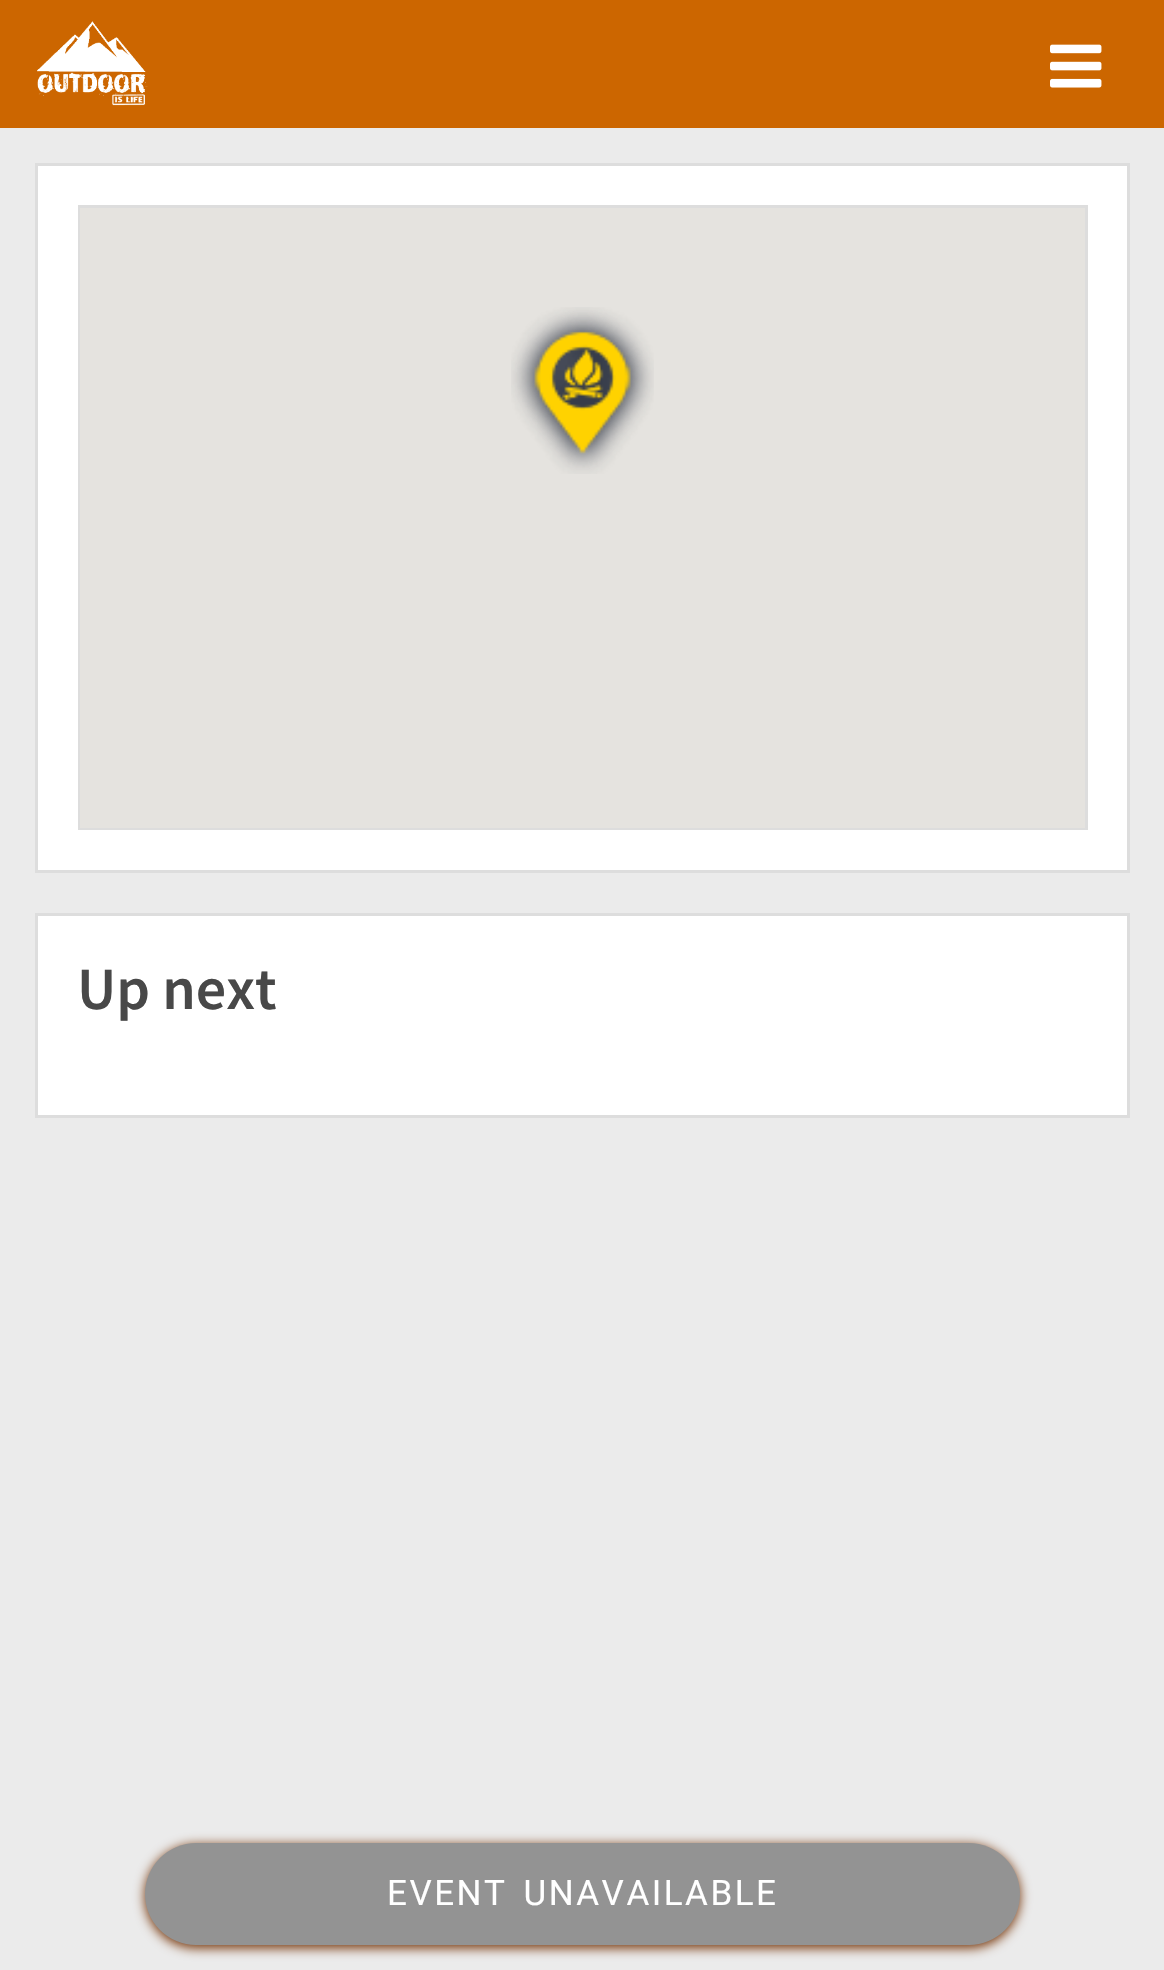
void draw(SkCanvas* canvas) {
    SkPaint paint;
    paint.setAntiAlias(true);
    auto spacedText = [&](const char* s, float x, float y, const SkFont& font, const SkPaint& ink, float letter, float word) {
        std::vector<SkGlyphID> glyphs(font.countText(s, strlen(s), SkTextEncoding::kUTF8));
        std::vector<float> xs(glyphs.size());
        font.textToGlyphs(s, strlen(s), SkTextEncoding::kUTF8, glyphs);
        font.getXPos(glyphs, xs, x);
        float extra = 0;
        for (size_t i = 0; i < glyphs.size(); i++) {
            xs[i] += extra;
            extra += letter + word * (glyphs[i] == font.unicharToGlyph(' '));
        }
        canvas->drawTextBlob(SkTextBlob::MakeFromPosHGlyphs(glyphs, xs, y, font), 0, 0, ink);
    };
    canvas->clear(0xFFEBEBEB);
    paint.setColor(0xFFCC6600);
    canvas->drawRect(SkRect::MakeXYWH(0, 0, 1164, 128), paint);
    canvas->drawImageRect(SkImages::DeferredFromEncodedData(SkData::MakeFromFileName("img1.png")), SkRect::MakeXYWH(37, 21, 111, 85), SkSamplingOptions());
    canvas->drawImageRect(SkImages::DeferredFromEncodedData(SkData::MakeFromFileName("img2.png")), SkRect::MakeXYWH(1050, 44, 52, 44), SkSamplingOptions());
    paint.setColor(0xFFFFFFFF);
    canvas->drawRect(SkRect::MakeXYWH(36.5f, 164.5f, 1092, 707), paint);
    paint.setStyle(SkPaint::kStroke_Style);
    paint.setStrokeWidth(3);
    paint.setColor(0xFFDDDDDD);
    canvas->drawRect(SkRect::MakeXYWH(36.5f, 164.5f, 1092, 707), paint);
    canvas->drawRect(SkRect::MakeXYWH(79.5f, 206.5f, 1007, 622), paint);
    paint.setStyle(SkPaint::kFill_Style);
    paint.setColor(0xFFE5E3DF);
    canvas->drawRect(SkRect::MakeXYWH(80, 208, 1005, 620), paint);
    canvas->drawImageRect(SkImages::DeferredFromEncodedData(SkData::MakeFromFileName("img3.png")), SkRect::MakeXYWH(511, 307, 143, 167), SkSamplingOptions());
    paint.setColor(0xFFFFFFFF);
    canvas->drawRect(SkRect::MakeXYWH(36.5f, 914.5f, 1092, 202), paint);
    paint.setStyle(SkPaint::kStroke_Style);
    paint.setColor(0xFFDDDDDD);
    canvas->drawRect(SkRect::MakeXYWH(36.5f, 914.5f, 1092, 202), paint);
    SkFont font1(fontMgr->matchFamilyStyle("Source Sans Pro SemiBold", SkFontStyle(600, SkFontStyle::kNormal_Width, SkFontStyle::kUpright_Slant)), 60);
    font1.setSubpixel(true);
    paint.setStyle(SkPaint::kFill_Style);
    paint.setColor(0xFF484848);
    canvas->drawString("Up next", 77, 1009, font1, paint);
    paint.setColor(0xFF733104);
    paint.setMaskFilter(SkMaskFilter::MakeBlur(kNormal_SkBlurStyle, 6));
    canvas->drawRoundRect(SkRect::MakeXYWH(145, 1845, 875, 103), 51.5f, 51.5f, paint);
    paint.setMaskFilter(nullptr);
    paint.setColor(0xFF939393);
    canvas->drawRoundRect(SkRect::MakeXYWH(145, 1843, 875, 102), 51, 51, paint);
    SkFont font2(fontMgr->matchFamilyStyle("Roboto", SkFontStyle::Normal()), 35);
    font2.setSubpixel(true);
    paint.setColor(0xFFFFFFFF);
    spacedText("EVENT UNAVAILABLE", 387, 1905, font2, paint, 2.5f, 5);
}
